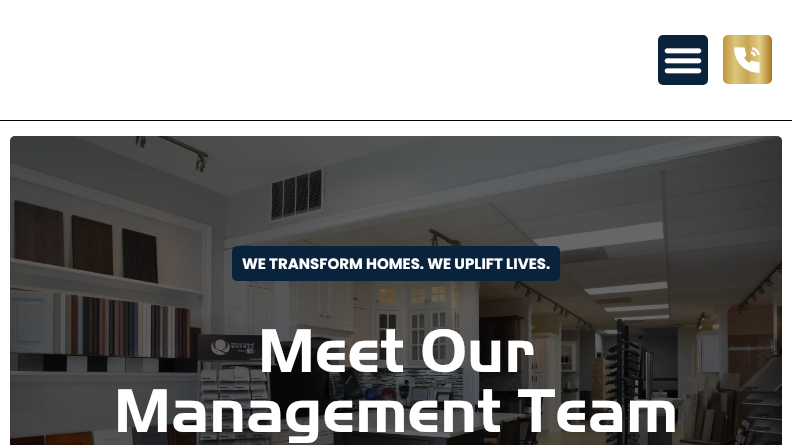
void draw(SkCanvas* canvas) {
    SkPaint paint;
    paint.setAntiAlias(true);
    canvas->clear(0xFFFFFFFF);
    paint.setColor(0xFF000000);
    canvas->drawRect(SkRect::MakeXYWH(0, 120, 792, 1), paint);
    paint.setColor(0xFF0A233C);
    canvas->drawRoundRect(SkRect::MakeXYWH(658, 35, 50, 50), 5, 5, paint);
    canvas->drawImageRect(SkImages::DeferredFromEncodedData(SkData::MakeFromFileName("img1.png")), SkRect::MakeXYWH(664, 48, 38, 26), SkSamplingOptions());
    {
        const SkColor colors[] = {0xFFBF953F, 0xFFDDC57D, 0xFFC8A652, 0xFFE2CE85, 0xFFAA771C};
        const float stops[] = {0, 0.25f, 0.5f, 0.75f, 1};
        const SkPoint ends[] = {{723, 60}, {772, 60}};
        paint.setShader(SkGradientShader::MakeLinear(ends, colors, stops, 5, SkTileMode::kClamp));
        paint.setAlpha(255);
    }
    canvas->drawRoundRect(SkRect::MakeXYWH(723, 35, 49, 49), 5, 5, paint);
    canvas->drawImageRect(SkImages::DeferredFromEncodedData(SkData::MakeFromFileName("img2.png")), SkRect::MakeXYWH(734, 47, 26, 26), SkSamplingOptions());
    canvas->drawImageRect(SkImages::DeferredFromEncodedData(SkData::MakeFromFileName("img3.png")), SkRect::MakeXYWH(10, 136, 772, 309), SkSamplingOptions());
    paint.setShader(nullptr);
    paint.setColor(0x99000000);
    canvas->drawRoundRect(SkRect::MakeXYWH(10, 136, 772, 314), 5, 5, paint);
    paint.setColor(0xFF0A233C);
    canvas->drawRoundRect(SkRect::MakeXYWH(232, 246, 328, 35), 5, 5, paint);
    SkFont font1(fontMgr->matchFamilyStyle("Poppins", SkFontStyle::Bold()), 15);
    font1.setSubpixel(true);
    paint.setColor(0xFFFFFFFF);
    canvas->drawString("WE TRANSFORM HOMES. WE UPLIFT LIVES.", 242, 269, font1, paint);
    SkFont font2(fontMgr->matchFamilyStyle("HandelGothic", SkFontStyle::Normal()), 64);
    font2.setSubpixel(true);
    canvas->drawString("Meet Our", 258, 372, font2, paint);
    canvas->drawString("Management Team", 114, 432, font2, paint);
}
